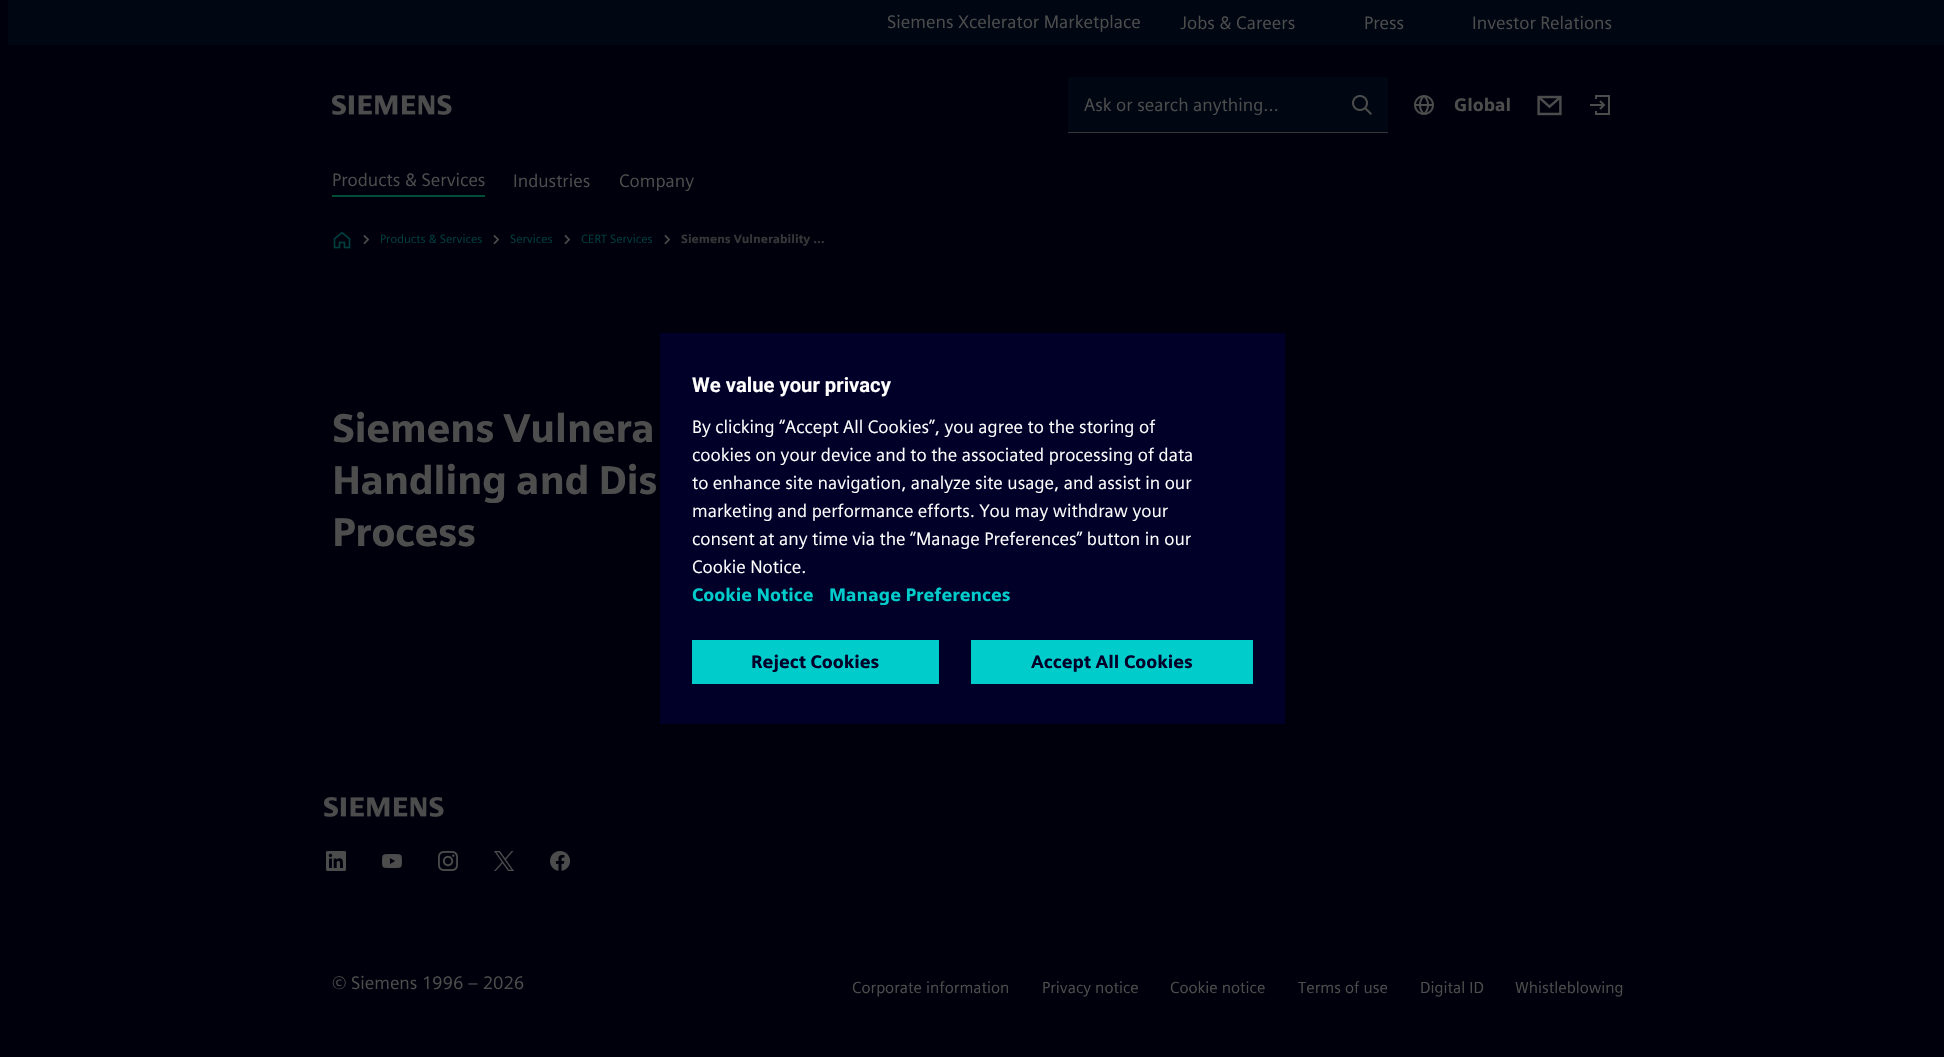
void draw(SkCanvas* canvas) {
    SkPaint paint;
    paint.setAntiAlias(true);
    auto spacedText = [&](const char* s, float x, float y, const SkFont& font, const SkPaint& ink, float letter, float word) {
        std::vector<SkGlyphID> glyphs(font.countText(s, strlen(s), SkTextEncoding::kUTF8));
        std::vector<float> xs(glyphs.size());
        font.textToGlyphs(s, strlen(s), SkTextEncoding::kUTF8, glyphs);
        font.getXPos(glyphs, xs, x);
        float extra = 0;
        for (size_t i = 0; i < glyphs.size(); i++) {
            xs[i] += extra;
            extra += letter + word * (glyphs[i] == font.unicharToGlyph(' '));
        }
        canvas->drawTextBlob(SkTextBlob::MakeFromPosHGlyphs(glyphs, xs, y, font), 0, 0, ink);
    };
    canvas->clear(0xFF00000C);
    paint.setColor(0xFF000712);
    canvas->drawRect(SkRect::MakeXYWH(8, 0, 1936, 45), paint);
    SkFont font1(fontMgr->matchFamilyStyle("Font", SkFontStyle::Normal()), 18);
    font1.setSubpixel(true);
    paint.setColor(0xFF4D4D4D);
    canvas->drawString("Siemens Xcelerator Marketplace", 887, 28, font1, paint);
    canvas->drawString("Jobs & Careers", 1180, 29, font1, paint);
    canvas->drawString("Press", 1364, 29, font1, paint);
    canvas->drawString("Investor Relations", 1472, 29, font1, paint);
    canvas->drawImageRect(SkImages::DeferredFromEncodedData(SkData::MakeFromFileName("img1.png")), SkRect::MakeXYWH(332, 95, 120, 20), SkSamplingOptions());
    paint.setColor(0xFF000712);
    canvas->drawRect(SkRect::MakeXYWH(1068, 77, 320, 55), paint);
    paint.setColor(0xFF363639);
    canvas->drawRect(SkRect::MakeXYWH(1068, 132, 320, 1), paint);
    paint.setColor(0xFF4D4D4D);
    canvas->drawString("Ask or search anything…", 1084, 111, font1, paint);
    canvas->drawImageRect(SkImages::DeferredFromEncodedData(SkData::MakeFromFileName("img2.png")), SkRect::MakeXYWH(1352, 95, 20, 20), SkSamplingOptions());
    canvas->drawImageRect(SkImages::DeferredFromEncodedData(SkData::MakeFromFileName("img3.png")), SkRect::MakeXYWH(1414, 95, 20, 20), SkSamplingOptions());
    SkFont font2(fontMgr->matchFamilyStyle("Font", SkFontStyle::Bold()), 18);
    font2.setSubpixel(true);
    canvas->drawString("Global", 1454, 111, font2, paint);
    canvas->drawImageRect(SkImages::DeferredFromEncodedData(SkData::MakeFromFileName("img4.png")), SkRect::MakeXYWH(1537, 95, 25, 21), SkSamplingOptions());
    canvas->drawImageRect(SkImages::DeferredFromEncodedData(SkData::MakeFromFileName("img5.png")), SkRect::MakeXYWH(1590, 95, 20, 20), SkSamplingOptions());
    paint.setColor(0xFF004D38);
    canvas->drawRect(SkRect::MakeXYWH(332, 195, 153, 2), paint);
    paint.setColor(0xFF4D4D4D);
    canvas->drawString("Products & Services", 332, 186, font1, paint);
    canvas->drawString("Industries", 513, 187, font1, paint);
    canvas->drawString("Company", 619, 187, font1, paint);
    canvas->drawImageRect(SkImages::DeferredFromEncodedData(SkData::MakeFromFileName("img6.png")), SkRect::MakeXYWH(333, 231, 18, 18), SkSamplingOptions());
    canvas->drawImageRect(SkImages::DeferredFromEncodedData(SkData::MakeFromFileName("img7.png")), SkRect::MakeXYWH(363, 234, 7, 11), SkSamplingOptions());
    SkFont font3(fontMgr->matchFamilyStyle("Font", SkFontStyle::Normal()), 12);
    font3.setSubpixel(true);
    paint.setColor(0xFF003D3D);
    canvas->drawString("Products & Services", 380, 243, font3, paint);
    canvas->drawImageRect(SkImages::DeferredFromEncodedData(SkData::MakeFromFileName("img7.png")), SkRect::MakeXYWH(493, 234, 7, 11), SkSamplingOptions());
    canvas->drawString("Services", 510, 243, font3, paint);
    canvas->drawImageRect(SkImages::DeferredFromEncodedData(SkData::MakeFromFileName("img7.png")), SkRect::MakeXYWH(564, 234, 7, 11), SkSamplingOptions());
    canvas->drawString("CERT Services", 581, 243, font3, paint);
    canvas->drawImageRect(SkImages::DeferredFromEncodedData(SkData::MakeFromFileName("img7.png")), SkRect::MakeXYWH(664, 234, 7, 11), SkSamplingOptions());
    SkFont font4(fontMgr->matchFamilyStyle("Font", SkFontStyle::Bold()), 12);
    font4.setSubpixel(true);
    paint.setColor(0xFF363639);
    canvas->drawString("Siemens Vulnerability …", 681, 243, font4, paint);
    SkFont font5(fontMgr->matchFamilyStyle("Font", SkFontStyle::Bold()), 40);
    font5.setSubpixel(true);
    paint.setColor(0xFF4D4D4D);
    spacedText("Siemens Vulnera", 332, 442, font5, paint, -0.5f, 0);
    spacedText("Handling and Dis", 332, 494, font5, paint, -0.5f, 0);
    spacedText("Process", 332, 546, font5, paint, -0.5f, 0);
    canvas->drawImageRect(SkImages::DeferredFromEncodedData(SkData::MakeFromFileName("img1.png")), SkRect::MakeXYWH(324, 797, 120, 20), SkSamplingOptions());
    canvas->drawImageRect(SkImages::DeferredFromEncodedData(SkData::MakeFromFileName("img8.png")), SkRect::MakeXYWH(326, 851, 20, 20), SkSamplingOptions());
    canvas->drawImageRect(SkImages::DeferredFromEncodedData(SkData::MakeFromFileName("img9.png")), SkRect::MakeXYWH(382, 854, 20, 15), SkSamplingOptions());
    canvas->drawImageRect(SkImages::DeferredFromEncodedData(SkData::MakeFromFileName("img10.png")), SkRect::MakeXYWH(438, 851, 20, 20), SkSamplingOptions());
    canvas->drawImageRect(SkImages::DeferredFromEncodedData(SkData::MakeFromFileName("img11.png")), SkRect::MakeXYWH(494, 851, 20, 20), SkSamplingOptions());
    canvas->drawImageRect(SkImages::DeferredFromEncodedData(SkData::MakeFromFileName("img12.png")), SkRect::MakeXYWH(550, 851, 21, 20), SkSamplingOptions());
    canvas->drawString("© Siemens 1996 – 2026", 332, 989, font1, paint);
    SkFont font6(fontMgr->matchFamilyStyle("Font", SkFontStyle::Normal()), 16);
    font6.setSubpixel(true);
    canvas->drawString("Corporate information", 852, 993, font6, paint);
    canvas->drawString("Privacy notice", 1042, 993, font6, paint);
    canvas->drawString("Cookie notice", 1170, 993, font6, paint);
    canvas->drawString("Terms of use", 1298, 993, font6, paint);
    canvas->drawString("Digital ID", 1420, 993, font6, paint);
    canvas->drawString("Whistleblowing", 1515, 993, font6, paint);
    paint.setColor(0xFF000028);
    canvas->drawRect(SkRect::MakeXYWH(660, 333, 625, 391), paint);
    SkFont font7(fontMgr->matchFamilyStyle("Roboto", SkFontStyle::Bold()), 20.25f);
    font7.setSubpixel(true);
    paint.setColor(0xFFFFFFFF);
    canvas->drawString("We value your privacy", 692, 392, font7, paint);
    canvas->drawString("By clicking “Accept All Cookies”, you agree to the storing of", 692, 433, font1, paint);
    canvas->drawString("cookies on your device and to the associated processing of data", 692, 461, font1, paint);
    canvas->drawString("to enhance site navigation, analyze site usage, and assist in our", 692, 489, font1, paint);
    canvas->drawString("marketing and performance efforts. You may withdraw your", 692, 517, font1, paint);
    canvas->drawString("consent at any time via the “Manage Preferences” button in our", 692, 545, font1, paint);
    canvas->drawString("Cookie Notice.", 692, 573, font1, paint);
    paint.setColor(0xFF00CCCC);
    canvas->drawString("Cookie Notice", 692, 601, font2, paint);
    canvas->drawString("Manage Preferences", 829, 601, font2, paint);
    canvas->drawRect(SkRect::MakeXYWH(692, 640, 247, 44), paint);
    paint.setColor(0xFF000028);
    canvas->drawString("Reject Cookies", 751, 668, font2, paint);
    paint.setColor(0xFF00CCCC);
    canvas->drawRect(SkRect::MakeXYWH(971, 640, 282, 44), paint);
    paint.setColor(0xFF000028);
    canvas->drawString("Accept All Cookies", 1031, 668, font2, paint);
}
